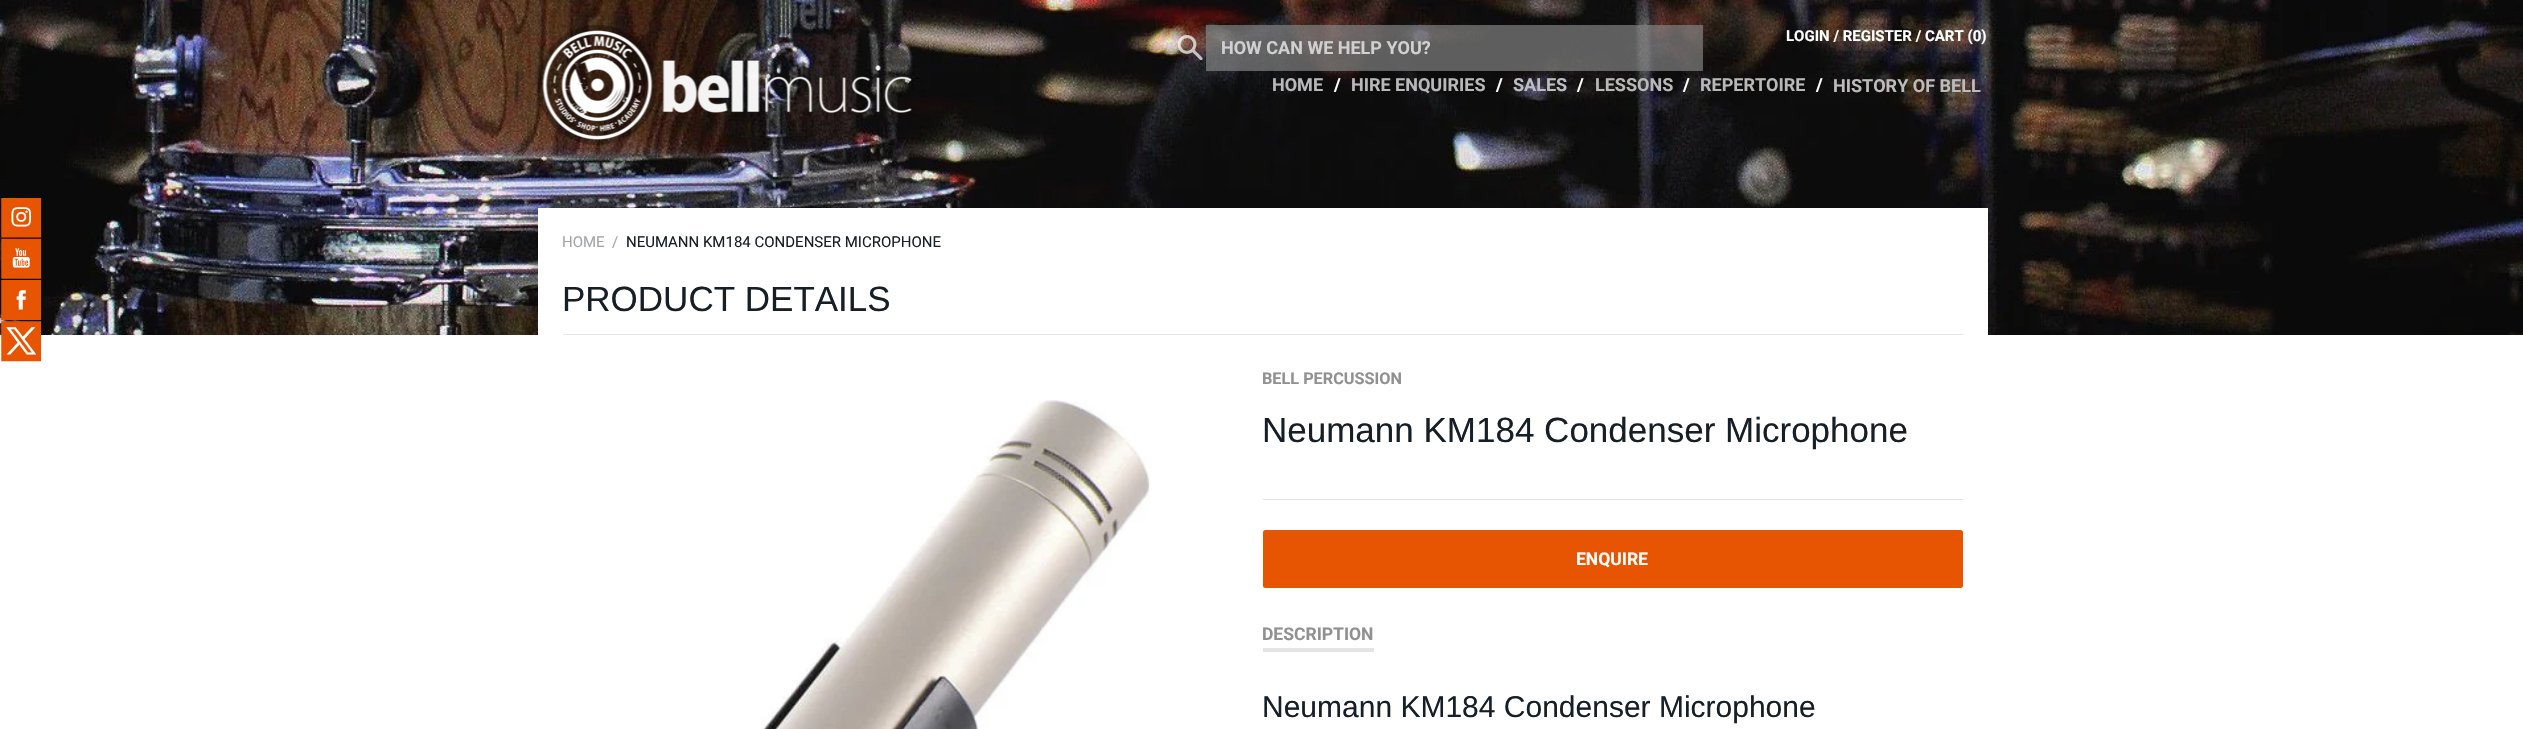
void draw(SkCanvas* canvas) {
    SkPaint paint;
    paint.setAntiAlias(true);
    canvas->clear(0xFFFFFFFF);
    canvas->drawImageRect(SkImages::DeferredFromEncodedData(SkData::MakeFromFileName("img2.png")), SkRect::MakeXYWH(0, 0, 2523, 335), SkSamplingOptions());
    canvas->drawImageRect(SkImages::DeferredFromEncodedData(SkData::MakeFromFileName("img1.png")), SkRect::MakeXYWH(1, 198, 41, 164), SkSamplingOptions());
    canvas->drawImageRect(SkImages::DeferredFromEncodedData(SkData::MakeFromFileName("img3.png")), SkRect::MakeXYWH(537, 25, 375, 120), SkSamplingOptions());
    SkFont font1(fontMgr->matchFamilyStyle("Roboto", SkFontStyle::Bold()), 15);
    font1.setSubpixel(true);
    paint.setColor(0xFFFFFFFF);
    canvas->drawString("LOGIN / REGISTER / CART (0)", 1786, 41, font1, paint);
    canvas->drawImageRect(SkImages::DeferredFromEncodedData(SkData::MakeFromFileName("img4.png")), SkRect::MakeXYWH(1178, 35, 25, 25), SkSamplingOptions());
    paint.setColor(0xB3808080);
    canvas->drawRect(SkRect::MakeXYWH(1206, 25, 497, 46), paint);
    SkFont font2(fontMgr->matchFamilyStyle("Roboto", SkFontStyle::Bold()), 18);
    font2.setSubpixel(true);
    paint.setColor(0xFFD1D0D0);
    canvas->drawString("HOW CAN WE HELP YOU?", 1221, 54, font2, paint);
    paint.setColor(0xFFB8B8B8);
    canvas->drawString("HOME", 1272, 91, font2, paint);
    paint.setColor(0xFFFFFFFF);
    canvas->drawString("/", 1334, 91, font2, paint);
    paint.setColor(0xFFB8B8B8);
    canvas->drawString("HIRE ENQUIRIES", 1351, 91, font2, paint);
    paint.setColor(0xFFFFFFFF);
    canvas->drawString("/", 1496, 91, font2, paint);
    paint.setColor(0xFFBEBEC1);
    canvas->drawString("SALES", 1513, 91, font2, paint);
    paint.setColor(0xFFFFFFFF);
    canvas->drawString("/", 1577, 91, font2, paint);
    paint.setColor(0xFFB8B8B8);
    canvas->drawString("LESSONS", 1595, 91, font2, paint);
    paint.setColor(0xFFFFFFFF);
    canvas->drawString("/", 1683, 91, font2, paint);
    paint.setColor(0xFFB8B8B8);
    canvas->drawString("REPERTOIRE", 1700, 91, font2, paint);
    paint.setColor(0xFFFFFFFF);
    canvas->drawString("/", 1816, 91, font2, paint);
    paint.setColor(0xFFBEBCBB);
    canvas->drawString("HISTORY OF BELL", 1833, 92, font2, paint);
    paint.setColor(0xFFFFFFFF);
    canvas->drawRect(SkRect::MakeXYWH(538, 208, 1450, 127), paint);
    SkFont font3(fontMgr->matchFamilyStyle("Roboto", SkFontStyle::Normal()), 15);
    font3.setSubpixel(true);
    paint.setColor(0xFFA2A5A8);
    canvas->drawString("HOME", 562, 247, font3, paint);
    canvas->drawString("/", 612, 247, font3, paint);
    paint.setColor(0xFF161E26);
    canvas->drawString("NEUMANN KM184 CONDENSER MICROPHONE", 626, 247, font3, paint);
    paint.setColor(0xFFE4E4E4);
    canvas->drawRect(SkRect::MakeXYWH(563, 334, 1400, 1), paint);
    SkFont font4(fontMgr->matchFamilyStyle("Liberation Sans", SkFontStyle::Normal()), 35);
    font4.setSubpixel(true);
    paint.setColor(0xFF161E26);
    canvas->drawString("PRODUCT DETAILS", 562, 311, font4, paint);
    canvas->drawImageRect(SkImages::DeferredFromEncodedData(SkData::MakeFromFileName("img5.png")), SkRect::MakeXYWH(761, 400, 390, 329), SkSamplingOptions());
    paint.setColor(0xFFE4E4E4);
    canvas->drawRect(SkRect::MakeXYWH(1263, 499, 700, 1), paint);
    SkFont font5(fontMgr->matchFamilyStyle("Roboto", SkFontStyle::Bold()), 16.25f);
    font5.setSubpixel(true);
    paint.setColor(0xFF919191);
    canvas->drawString("BELL PERCUSSION", 1262, 384, font5, paint);
    paint.setColor(0xFF161E26);
    canvas->drawString("Neumann KM184 Condenser Microphone", 1262, 442, font4, paint);
    paint.setColor(0xFFE75502);
    canvas->drawRoundRect(SkRect::MakeXYWH(1263, 530, 700, 58), 2.5f, 2.5f, paint);
    SkFont font6(fontMgr->matchFamilyStyle("Roboto", SkFontStyle::Bold()), 17.5f);
    font6.setSubpixel(true);
    paint.setColor(0xFFFFFFFF);
    canvas->drawString("ENQUIRE", 1576, 565, font6, paint);
    paint.setColor(0xFFE4E4E4);
    canvas->drawRect(SkRect::MakeXYWH(1263, 648, 111, 4), paint);
    paint.setColor(0xFF919191);
    canvas->drawString("DESCRIPTION", 1262, 640, font6, paint);
    SkFont font7(fontMgr->matchFamilyStyle("Liberation Sans", SkFontStyle::Normal()), 30);
    font7.setSubpixel(true);
    paint.setColor(0xFF161E26);
    canvas->drawString("Neumann KM184 Condenser Microphone", 1262, 717, font7, paint);
}
